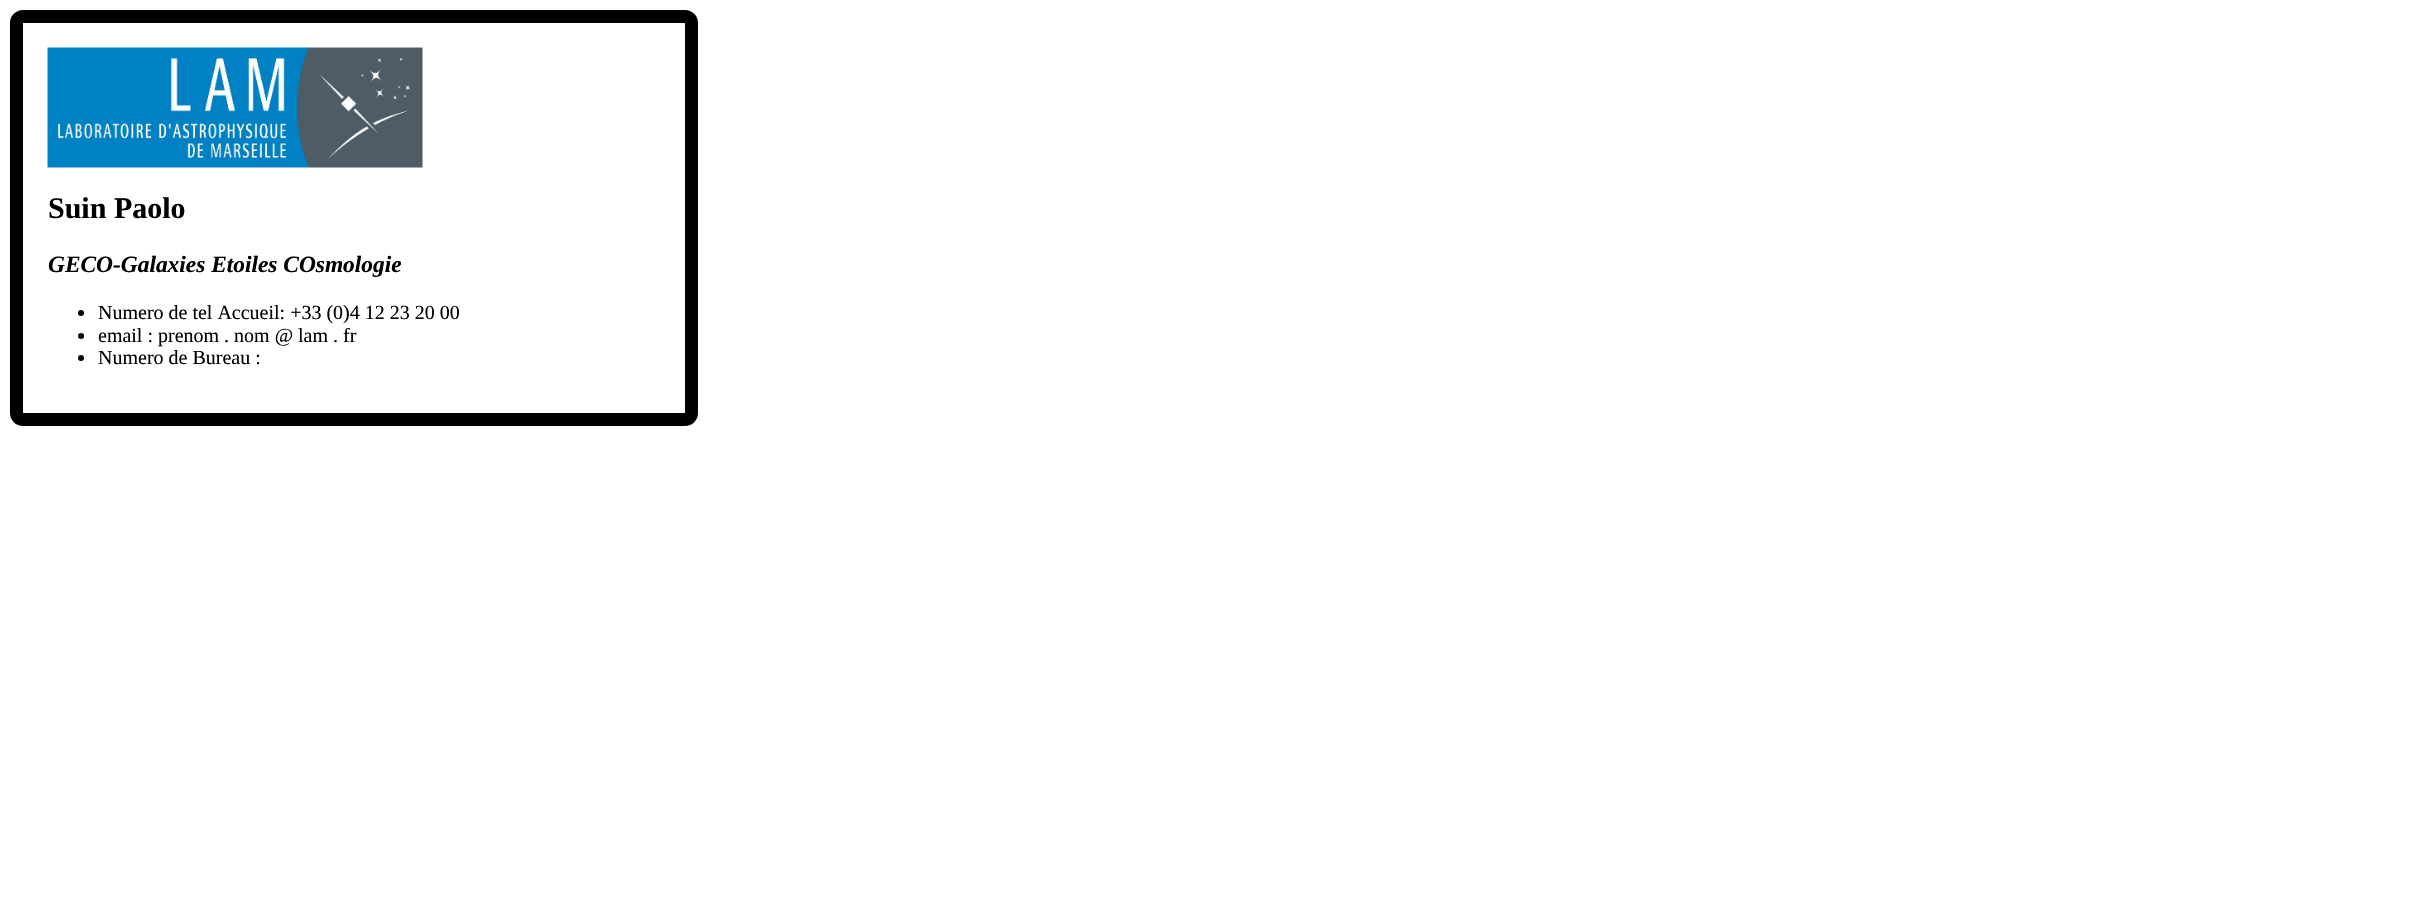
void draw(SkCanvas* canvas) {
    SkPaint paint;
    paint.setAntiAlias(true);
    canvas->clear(0xFFFFFFFF);
    paint.setStyle(SkPaint::kStroke_Style);
    paint.setStrokeWidth(13);
    paint.setColor(0xFF000000);
    canvas->drawRoundRect(SkRect::MakeXYWH(16.5f, 16.5f, 675, 403), 6.5f, 6.5f, paint);
    canvas->drawImageRect(SkImages::DeferredFromEncodedData(SkData::MakeFromFileName("img1.png")), SkRect::MakeXYWH(47, 47, 376, 121), SkSamplingOptions());
    SkFont font1(fontMgr->matchFamilyStyle("Liberation Serif", SkFontStyle::Bold()), 30);
    font1.setSubpixel(true);
    paint.setStyle(SkPaint::kFill_Style);
    canvas->drawString("Suin Paolo", 48, 218, font1, paint);
    SkFont font2(fontMgr->matchFamilyStyle("Liberation Serif", SkFontStyle::BoldItalic()), 23.4f);
    font2.setSubpixel(true);
    canvas->drawString("GECO-Galaxies Etoiles COsmologie", 48, 272, font2, paint);
    canvas->drawCircle(81, 313, 3, paint);
    SkFont font3(fontMgr->matchFamilyStyle("Liberation Serif", SkFontStyle::Normal()), 20);
    font3.setSubpixel(true);
    canvas->drawString("Numero de tel Accueil: +33 (0)4 12 23 20 00", 98, 319, font3, paint);
    canvas->drawCircle(81, 336, 3, paint);
    canvas->drawString("email : prenom . nom @ lam . fr", 98, 342, font3, paint);
    canvas->drawCircle(81, 358, 3, paint);
    canvas->drawString("Numero de Bureau :", 98, 364, font3, paint);
}
